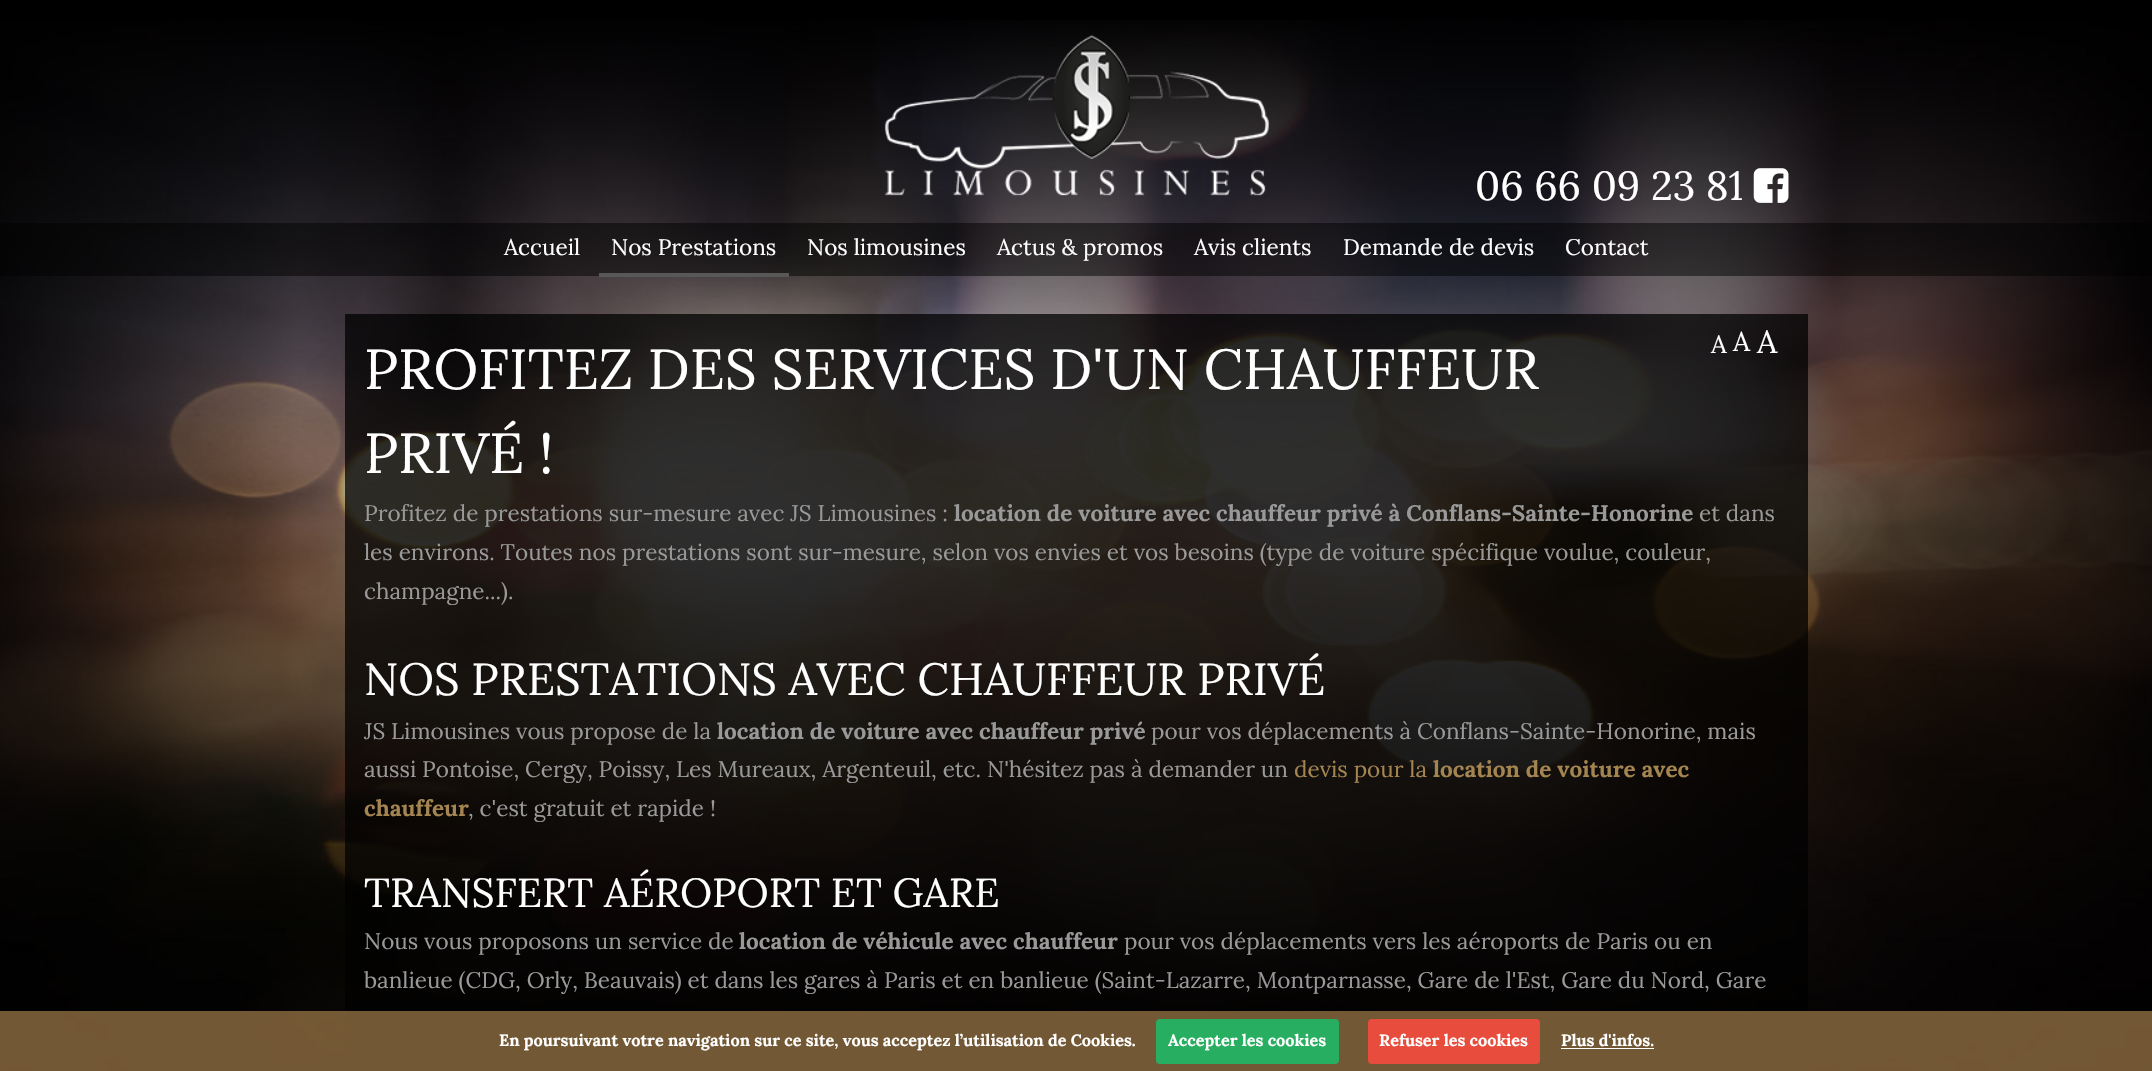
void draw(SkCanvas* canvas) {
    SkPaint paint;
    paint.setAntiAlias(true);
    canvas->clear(0xFF000000);
    canvas->drawImageRect(SkImages::DeferredFromEncodedData(SkData::MakeFromFileName("img1.png")), SkRect::MakeXYWH(0, 20, 2152, 1051), SkSamplingOptions());
    canvas->drawImageRect(SkImages::DeferredFromEncodedData(SkData::MakeFromFileName("img2.png")), SkRect::MakeXYWH(884, 35, 385, 161), SkSamplingOptions());
    SkFont font1(fontMgr->matchFamilyStyle("Lora", SkFontStyle::Normal()), 40.5f);
    font1.setSubpixel(true);
    paint.setColor(0xFFFFFFFF);
    canvas->drawString("06 66 09 23 81", 1475, 200, font1, paint);
    canvas->drawImageRect(SkImages::DeferredFromEncodedData(SkData::MakeFromFileName("img3.png")), SkRect::MakeXYWH(1753, 168, 36, 35), SkSamplingOptions());
    paint.setColor(0x80000000);
    canvas->drawRect(SkRect::MakeXYWH(0, 223, 2152, 53), paint);
    SkFont font2(fontMgr->matchFamilyStyle("Lora", SkFontStyle::Normal()), 22.5f);
    font2.setSubpixel(true);
    paint.setColor(0xFFFFFFFF);
    canvas->drawString("Accueil", 504, 255, font2, paint);
    paint.setColor(0xFF585858);
    canvas->drawRect(SkRect::MakeXYWH(599, 273, 190, 4), paint);
    paint.setColor(0xFFFFFFFF);
    canvas->drawString("Nos Prestations", 611, 255, font2, paint);
    canvas->drawString("Nos limousines", 807, 255, font2, paint);
    canvas->drawString("Actus & promos", 997, 255, font2, paint);
    canvas->drawString("Avis clients", 1194, 255, font2, paint);
    canvas->drawString("Demande de devis", 1343, 255, font2, paint);
    canvas->drawString("Contact", 1565, 255, font2, paint);
    paint.setColor(0xBF000000);
    canvas->drawRect(SkRect::MakeXYWH(345, 314, 1463, 757), paint);
    SkFont font3(fontMgr->matchFamilyStyle("Lora", SkFontStyle::Normal()), 25);
    font3.setSubpixel(true);
    paint.setColor(0xFFFFFFFF);
    canvas->drawString("A", 1711, 353, font3, paint);
    SkFont font4(fontMgr->matchFamilyStyle("Lora", SkFontStyle::Normal()), 27);
    font4.setSubpixel(true);
    canvas->drawString("A", 1733, 351, font4, paint);
    SkFont font5(fontMgr->matchFamilyStyle("Lora", SkFontStyle::Normal()), 32);
    font5.setSubpixel(true);
    canvas->drawString("A", 1757, 353, font5, paint);
    SkFont font6(fontMgr->matchFamilyStyle("Lora", SkFontStyle::Normal()), 56.25f);
    font6.setSubpixel(true);
    canvas->drawString("PROFITEZ DES SERVICES D'UN CHAUFFEUR", 364, 389, font6, paint);
    canvas->drawString("PRIVÉ !", 364, 473, font6, paint);
    paint.setColor(0xFF999999);
    canvas->drawString("Profitez de prestations sur-mesure avec JS Limousines :", 364, 521, font2, paint);
    SkFont font7(fontMgr->matchFamilyStyle("Lora", SkFontStyle::Bold()), 22.5f);
    font7.setSubpixel(true);
    canvas->drawString("location de voiture avec chauffeur privé à Conflans-Sainte-Honorine", 954, 521, font7, paint);
    canvas->drawString("et dans", 1699, 521, font2, paint);
    canvas->drawString("les environs. Toutes nos prestations sont sur-mesure, selon vos envies et vos besoins (type de voiture spécifique voulue, couleur,", 364, 560, font2, paint);
    canvas->drawString("champagne...).", 364, 599, font2, paint);
    SkFont font8(fontMgr->matchFamilyStyle("Lora", SkFontStyle::Normal()), 45);
    font8.setSubpixel(true);
    paint.setColor(0xFFFFFFFF);
    canvas->drawString("NOS PRESTATIONS AVEC CHAUFFEUR PRIVÉ", 364, 695, font8, paint);
    paint.setColor(0xFF999999);
    canvas->drawString("JS Limousines vous propose de la", 364, 739, font2, paint);
    canvas->drawString("location de voiture avec chauffeur privé", 717, 739, font7, paint);
    canvas->drawString("pour vos déplacements à Conflans-Sainte-Honorine, mais", 1151, 739, font2, paint);
    canvas->drawString("aussi Pontoise, Cergy, Poissy, Les Mureaux, Argenteuil, etc. N'hésitez pas à demander un", 364, 777, font2, paint);
    paint.setColor(0xFFA48550);
    canvas->drawString("devis pour la", 1294, 777, font2, paint);
    canvas->drawString("location de voiture avec", 1433, 777, font7, paint);
    canvas->drawString("chauffeur", 364, 816, font7, paint);
    paint.setColor(0xFF999999);
    canvas->drawString(", c'est gratuit et rapide !", 468, 816, font2, paint);
    paint.setColor(0xFFFFFFFF);
    canvas->drawString("TRANSFERT AÉROPORT ET GARE", 364, 907, font1, paint);
    paint.setColor(0xFF999999);
    canvas->drawString("Nous vous proposons un service de", 364, 949, font2, paint);
    canvas->drawString("location de véhicule avec chauffeur", 739, 949, font7, paint);
    canvas->drawString("pour vos déplacements vers les aéroports de Paris ou en", 1124, 949, font2, paint);
    canvas->drawString("banlieue (CDG, Orly, Beauvais) et dans les gares à Paris et en banlieue (Saint-Lazarre, Montparnasse, Gare de l'Est, Gare du Nord, Gare", 364, 988, font2, paint);
    paint.setColor(0xCC8E6D41);
    canvas->drawRect(SkRect::MakeXYWH(0, 1011, 2152, 60), paint);
    SkFont font9(fontMgr->matchFamilyStyle("Lora", SkFontStyle::Bold()), 16.25f);
    font9.setSubpixel(true);
    paint.setColor(0xFFFFFFFF);
    canvas->drawString("En poursuivant votre navigation sur ce site, vous acceptez l’utilisation de Cookies.", 499, 1046, font9, paint);
    paint.setColor(0xFF27AE60);
    canvas->drawRoundRect(SkRect::MakeXYWH(1156, 1019, 183, 45), 4, 4, paint);
    paint.setColor(0xFFFFFFFF);
    canvas->drawString("Accepter les cookies", 1168, 1046, font9, paint);
    paint.setColor(0xFFE74C3C);
    canvas->drawRoundRect(SkRect::MakeXYWH(1368, 1019, 172, 45), 4, 4, paint);
    paint.setColor(0xFFFFFFFF);
    canvas->drawString("Refuser les cookies", 1379, 1046, font9, paint);
    canvas->drawString("Plus d'infos.", 1561, 1046, font9, paint);
    canvas->drawRect(SkRect::MakeXYWH(1561, 1048, 93, 1), paint);
}
